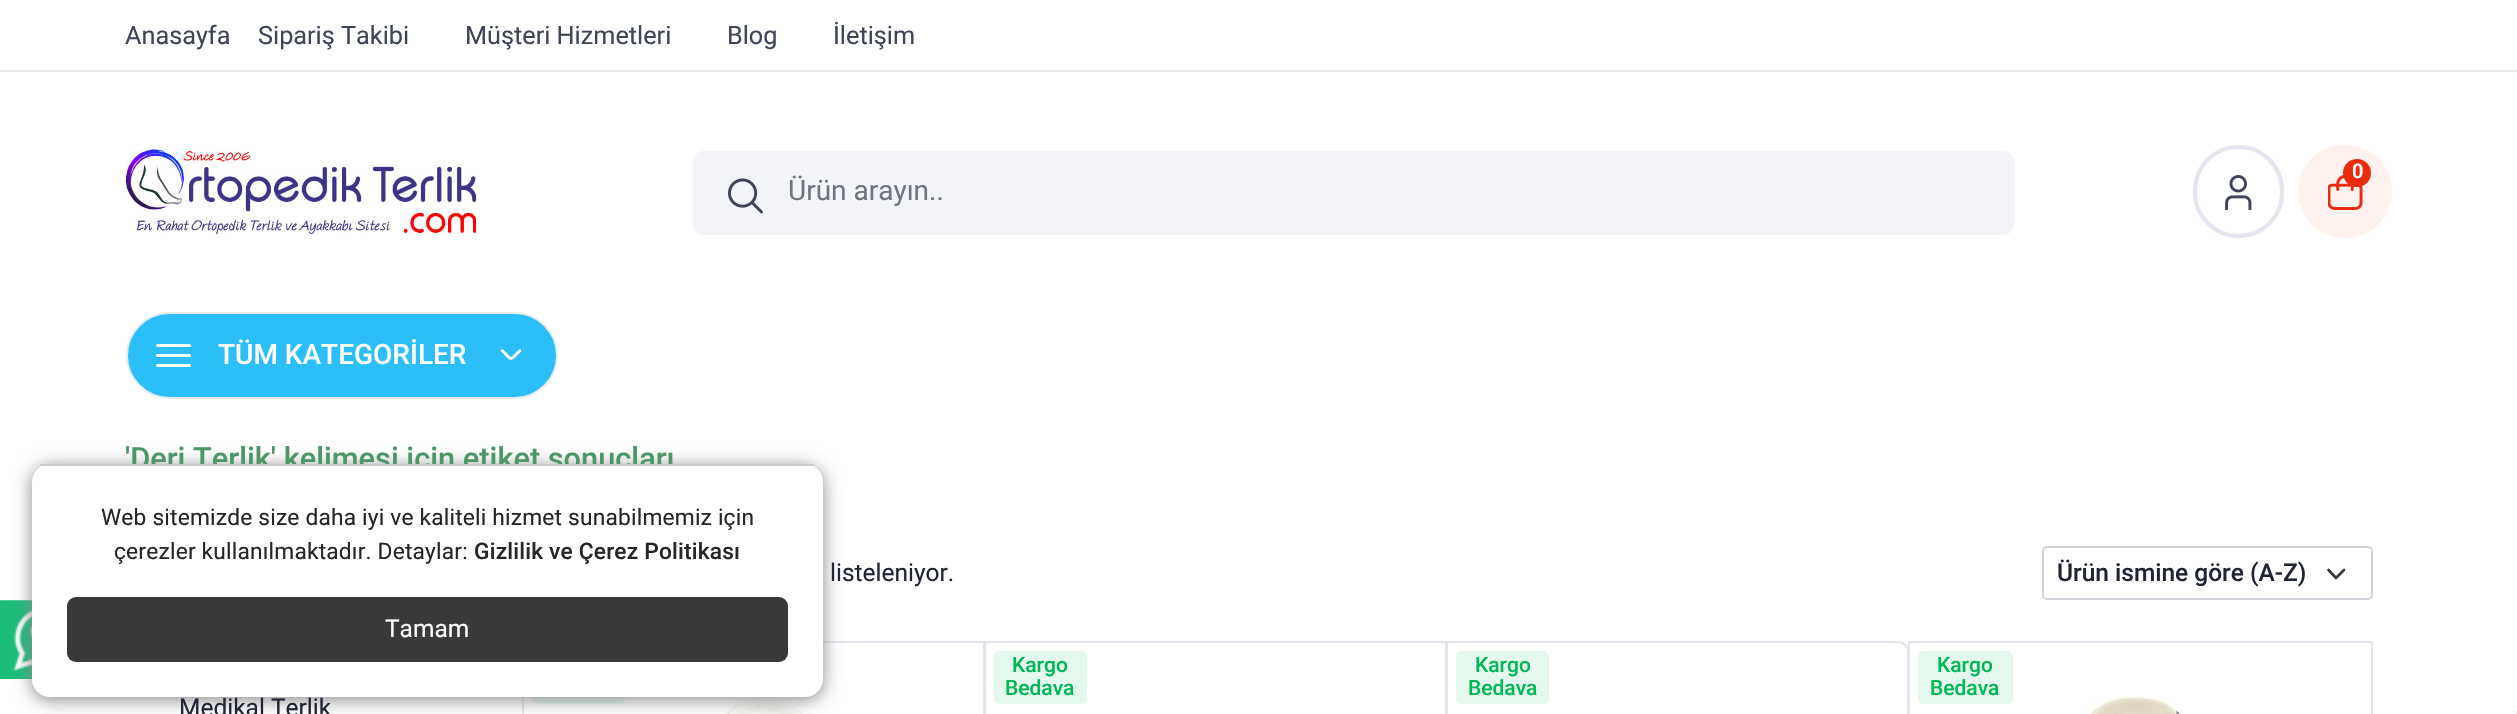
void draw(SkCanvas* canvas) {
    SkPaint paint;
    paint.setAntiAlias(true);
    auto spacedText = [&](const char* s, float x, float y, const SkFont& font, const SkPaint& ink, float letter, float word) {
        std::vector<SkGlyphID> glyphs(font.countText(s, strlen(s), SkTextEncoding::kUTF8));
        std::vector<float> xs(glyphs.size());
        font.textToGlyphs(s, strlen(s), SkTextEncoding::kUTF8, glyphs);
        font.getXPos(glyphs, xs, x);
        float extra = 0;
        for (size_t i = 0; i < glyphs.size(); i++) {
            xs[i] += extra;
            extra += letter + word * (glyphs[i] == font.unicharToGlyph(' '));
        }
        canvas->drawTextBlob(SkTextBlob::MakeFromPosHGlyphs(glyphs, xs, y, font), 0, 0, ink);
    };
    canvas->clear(0xFFFFFFFF);
    paint.setColor(0xFFE9ECEF);
    canvas->drawRect(SkRect::MakeXYWH(0, 70, 2517, 2), paint);
    SkFont font1(fontMgr->matchFamilyStyle("Roboto", SkFontStyle::Normal()), 25.25f);
    font1.setSubpixel(true);
    paint.setColor(0xFF3E445A);
    canvas->drawString("Anasayfa", 125, 44, font1, paint);
    canvas->drawString("Sipariş Takibi", 258, 44, font1, paint);
    canvas->drawString("Müşteri Hizmetleri", 465, 44, font1, paint);
    canvas->drawString("Blog", 727, 44, font1, paint);
    canvas->drawString("İletişim", 833, 44, font1, paint);
    canvas->drawImageRect(SkImages::DeferredFromEncodedData(SkData::MakeFromFileName("img1.png")), SkRect::MakeXYWH(126, 146, 350, 89), SkSamplingOptions());
    paint.setStyle(SkPaint::kStroke_Style);
    paint.setStrokeWidth(4);
    paint.setColor(0xFFE4E5EE);
    canvas->drawRoundRect(SkRect::MakeXYWH(2195, 147, 87, 89), 43.5f, 43.5f, paint);
    canvas->drawImageRect(SkImages::DeferredFromEncodedData(SkData::MakeFromFileName("img2.png")), SkRect::MakeXYWH(2225, 175, 27, 35), SkSamplingOptions());
    paint.setStyle(SkPaint::kFill_Style);
    paint.setColor(0xFFFFF1EE);
    canvas->drawRoundRect(SkRect::MakeXYWH(2298, 145, 94, 93), 46.5f, 46.5f, paint);
    canvas->drawImageRect(SkImages::DeferredFromEncodedData(SkData::MakeFromFileName("img3.png")), SkRect::MakeXYWH(2328, 175, 35, 35), SkSamplingOptions());
    paint.setColor(0xFFEA2B0F);
    canvas->drawCircle(2357, 173, 14, paint);
    SkFont font2(fontMgr->matchFamilyStyle("Roboto", SkFontStyle(600, SkFontStyle::kNormal_Width, SkFontStyle::kUpright_Slant)), 20);
    font2.setSubpixel(true);
    paint.setColor(0xFFFFFFFF);
    canvas->drawString("0", 2352, 178, font2, paint);
    paint.setColor(0xFFF3F4F7);
    canvas->drawRoundRect(SkRect::MakeXYWH(693, 151, 1321, 84), 11, 11, paint);
    canvas->drawImageRect(SkImages::DeferredFromEncodedData(SkData::MakeFromFileName("img4.png")), SkRect::MakeXYWH(728, 178, 35, 36), SkSamplingOptions());
    SkFont font3(fontMgr->matchFamilyStyle("Roboto", SkFontStyle::Normal()), 28);
    font3.setSubpixel(true);
    paint.setColor(0xFF6C757D);
    canvas->drawString("Ürün arayın..", 788, 200, font3, paint);
    paint.setColor(0xFF2BBEF9);
    canvas->drawRoundRect(SkRect::MakeXYWH(127, 313, 430, 85), 42.5f, 42.5f, paint);
    paint.setStyle(SkPaint::kStroke_Style);
    paint.setStrokeWidth(2);
    paint.setColor(0xFFE9ECEF);
    canvas->drawRoundRect(SkRect::MakeXYWH(127, 313, 430, 85), 42.5f, 42.5f, paint);
    paint.setStyle(SkPaint::kFill_Style);
    paint.setColor(0xFFFFFFFF);
    canvas->drawRoundRect(SkRect::MakeXYWH(156, 354, 35, 3), 1.5f, 1.5f, paint);
    canvas->drawRoundRect(SkRect::MakeXYWH(156, 344, 35, 3), 1.5f, 1.5f, paint);
    canvas->drawRoundRect(SkRect::MakeXYWH(156, 364, 35, 3), 1.5f, 1.5f, paint);
    SkFont font4(fontMgr->matchFamilyStyle("Roboto", SkFontStyle(500, SkFontStyle::kNormal_Width, SkFontStyle::kUpright_Slant)), 28);
    font4.setSubpixel(true);
    canvas->drawString("TÜM KATEGORİLER", 218, 364, font4, paint);
    canvas->drawImageRect(SkImages::DeferredFromEncodedData(SkData::MakeFromFileName("img5.png")), SkRect::MakeXYWH(500, 349, 22, 11), SkSamplingOptions());
    canvas->drawImageRect(SkImages::DeferredFromEncodedData(SkData::MakeFromFileName("img6.png")), SkRect::MakeXYWH(0, 600, 32, 79), SkSamplingOptions());
    paint.setStyle(SkPaint::kStroke_Style);
    paint.setColor(0xFFE4E5EE);
    canvas->drawRect(SkRect::MakeXYWH(523, 642, 461, 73), paint);
    paint.setStyle(SkPaint::kFill_Style);
    paint.setColor(0xFFE5F8ED);
    canvas->drawRoundRect(SkRect::MakeXYWH(532, 651, 93, 53), 5, 5, paint);
    canvas->drawImageRect(SkImages::DeferredFromEncodedData(SkData::MakeFromFileName("img7.png")), SkRect::MakeXYWH(724, 697, 80, 17), SkSamplingOptions());
    paint.setColor(0xFF888888);
    paint.setMaskFilter(SkMaskFilter::MakeBlur(kNormal_SkBlurStyle, 9));
    canvas->drawRoundRect(SkRect::MakeXYWH(32, 467, 791, 233), 18, 18, paint);
    paint.setMaskFilter(nullptr);
    SkFont font5(fontMgr->matchFamilyStyle("Roboto", SkFontStyle(500, SkFontStyle::kNormal_Width, SkFontStyle::kUpright_Slant)), 30.75f);
    font5.setSubpixel(true);
    paint.setColor(0xFF4D9668);
    canvas->drawString("'Deri Terlik' kelimesi için etiket sonuçları", 125, 469, font5, paint);
    paint.setColor(0xFFFFFFFF);
    canvas->drawRoundRect(SkRect::MakeXYWH(32, 464, 791, 233), 18, 18, paint);
    paint.setColor(0xFFCCCCCC);
    canvas->drawRect(SkRect::MakeXYWH(40, 464, 774, 2), paint);
    SkFont font6(fontMgr->matchFamilyStyle("Roboto", SkFontStyle::Normal()), 22.75f);
    font6.setSubpixel(true);
    paint.setColor(0xFF262626);
    spacedText("Web sitemizde size daha iyi ve kaliteli hizmet sunabilmemiz için", 101, 525, font6, paint, 0.18f, 0);
    spacedText("çerezler kullanılmaktadır. Detaylar:", 114, 559, font6, paint, 0.18f, 0);
    SkFont font7(fontMgr->matchFamilyStyle("Roboto", SkFontStyle(500, SkFontStyle::kNormal_Width, SkFontStyle::kUpright_Slant)), 22.75f);
    font7.setSubpixel(true);
    spacedText("Gizlilik ve Çerez Politikası", 474, 559, font7, paint, 0.18f, 0);
    paint.setColor(0xFF37393B);
    canvas->drawRoundRect(SkRect::MakeXYWH(67, 597, 721, 65), 9, 9, paint);
    SkFont font8(fontMgr->matchFamilyStyle("Roboto", SkFontStyle::Normal()), 24.5f);
    font8.setSubpixel(true);
    paint.setColor(0xFFFFFFFF);
    canvas->drawString("Tamam", 385, 637, font8, paint);
    paint.setColor(0xFF202435);
    canvas->drawString("listeleniyor.", 830, 581, font8, paint);
    paint.setStyle(SkPaint::kStroke_Style);
    paint.setStrokeWidth(2.6f);
    paint.setStrokeCap(SkPaint::kRound_Cap);
    paint.setStrokeJoin(SkPaint::kRound_Join);
    paint.setColor(0xFF343A40);
    canvas->drawPath(SkPathBuilder().moveTo(2328.5f, 570).lineTo(2336, 578).lineTo(2344, 570).detach(), paint);
    paint.setStrokeWidth(2);
    paint.setStrokeCap(SkPaint::kButt_Cap);
    paint.setStrokeJoin(SkPaint::kMiter_Join);
    paint.setColor(0xFFCED4DA);
    canvas->drawRoundRect(SkRect::MakeXYWH(2043, 547, 329, 52), 4, 4, paint);
    SkFont font9(fontMgr->matchFamilyStyle("Roboto", SkFontStyle(500, SkFontStyle::kNormal_Width, SkFontStyle::kUpright_Slant)), 24.5f);
    font9.setSubpixel(true);
    paint.setStyle(SkPaint::kFill_Style);
    paint.setColor(0xFF202435);
    canvas->drawString("Ürün ismine göre (A-Z)", 2057, 581, font9, paint);
    paint.setStyle(SkPaint::kStroke_Style);
    paint.setColor(0xFFE4E5EE);
    canvas->drawRect(SkRect::MakeXYWH(985, 642, 461, 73), paint);
    paint.setStyle(SkPaint::kFill_Style);
    paint.setColor(0xFFE5F8ED);
    canvas->drawRoundRect(SkRect::MakeXYWH(994, 651, 93, 53), 5, 5, paint);
    SkFont font10(fontMgr->matchFamilyStyle("Roboto", SkFontStyle(500, SkFontStyle::kNormal_Width, SkFontStyle::kUpright_Slant)), 21);
    font10.setSubpixel(true);
    paint.setColor(0xFF00B853);
    canvas->drawString("Kargo", 1012, 672, font10, paint);
    canvas->drawString("Bedava", 1005, 695, font10, paint);
    paint.setStyle(SkPaint::kStroke_Style);
    paint.setColor(0xFFE4E5EE);
    canvas->drawPath(SkPathBuilder().moveTo(1447, 642).lineTo(1898, 642).cubicTo(1903.5f, 642, 1908, 646.5f, 1908, 652).lineTo(1908, 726).lineTo(1447, 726).close().detach(), paint);
    paint.setStyle(SkPaint::kFill_Style);
    paint.setColor(0xFFE5F8ED);
    canvas->drawRoundRect(SkRect::MakeXYWH(1456, 651, 93, 53), 5, 5, paint);
    paint.setColor(0xFF00B853);
    canvas->drawString("Kargo", 1475, 672, font10, paint);
    canvas->drawString("Bedava", 1468, 695, font10, paint);
    paint.setStyle(SkPaint::kStroke_Style);
    paint.setColor(0xFFE4E5EE);
    canvas->drawRect(SkRect::MakeXYWH(1909, 642, 463, 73), paint);
    paint.setStyle(SkPaint::kFill_Style);
    paint.setColor(0xFFE5F8ED);
    canvas->drawRoundRect(SkRect::MakeXYWH(1918, 651, 95, 53), 5, 5, paint);
    paint.setColor(0xFF00B853);
    canvas->drawString("Kargo", 1937, 672, font10, paint);
    canvas->drawString("Bedava", 1930, 695, font10, paint);
    canvas->drawImageRect(SkImages::DeferredFromEncodedData(SkData::MakeFromFileName("img8.png")), SkRect::MakeXYWH(2087, 696, 97, 18), SkSamplingOptions());
    paint.setColor(0xFF202435);
    canvas->drawString("Medikal Terlik", 179, 716, font8, paint);
    paint.setColor(0xFFF5F5F5);
    canvas->drawRect(SkRect::MakeXYWH(2515, 711, 2, 3), paint);
}
